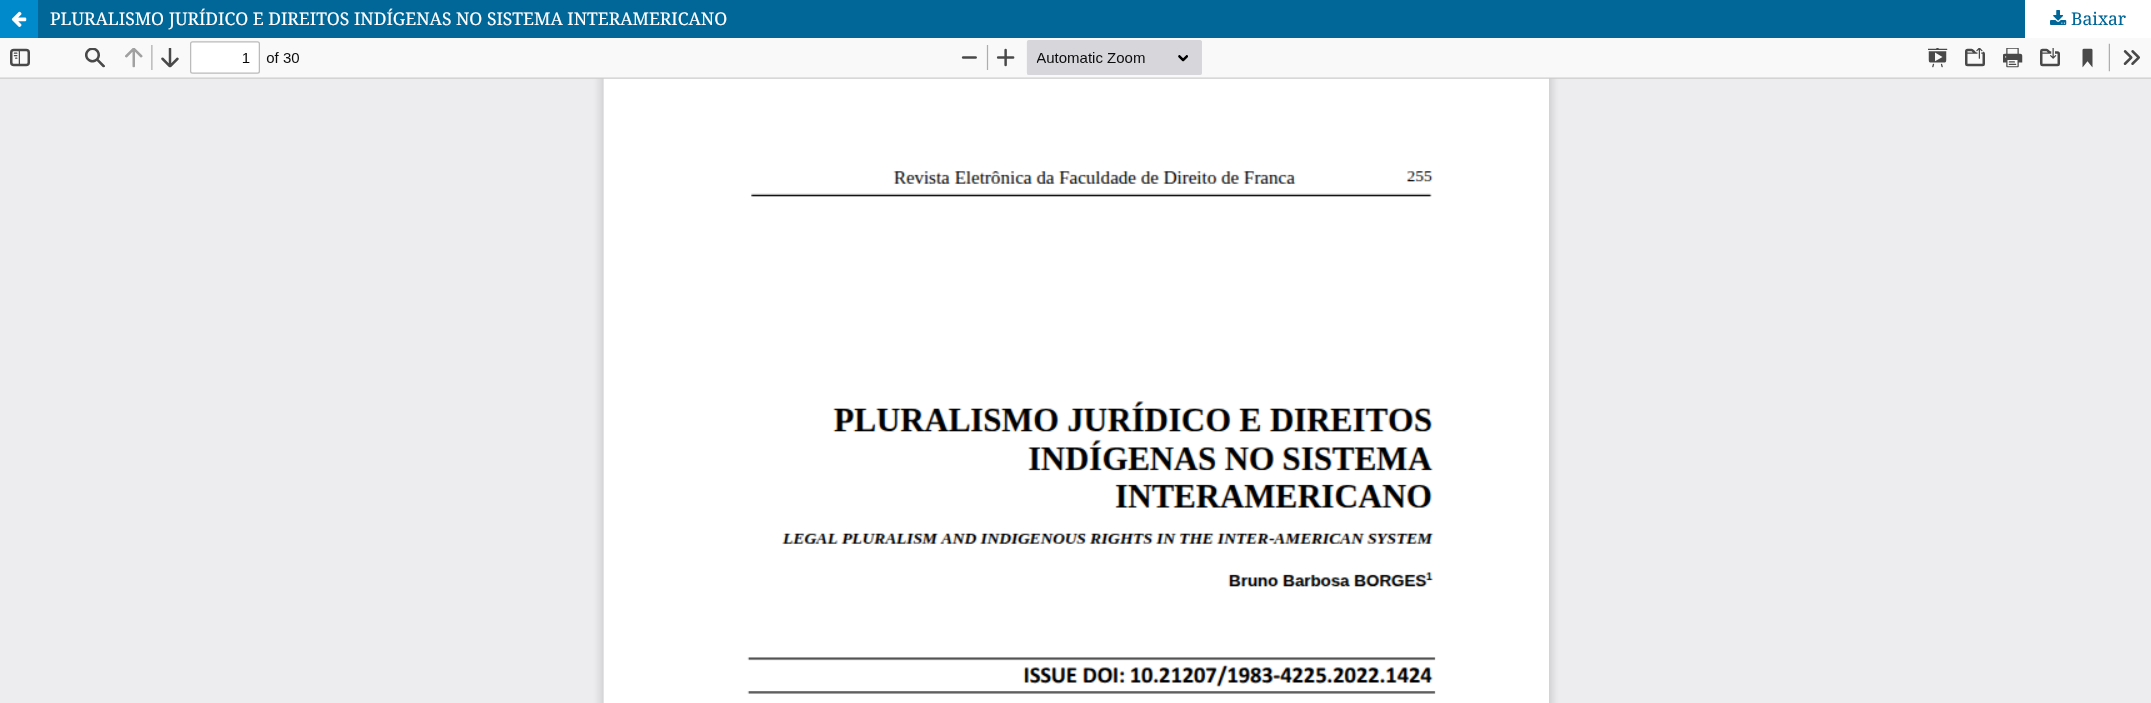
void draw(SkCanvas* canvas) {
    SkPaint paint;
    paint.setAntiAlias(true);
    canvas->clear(0xFFFFFFFF);
    paint.setColor(0xFF006798);
    canvas->drawRect(SkRect::MakeXYWH(38, 0, 1987, 38), paint);
    paint.setColor(0xFF008ACB);
    canvas->drawRect(SkRect::MakeXYWH(0, 0, 38, 38), paint);
    canvas->drawImageRect(SkImages::DeferredFromEncodedData(SkData::MakeFromFileName("img1.png")), SkRect::MakeXYWH(11, 11, 16, 16), SkSamplingOptions());
    SkFont font1(fontMgr->matchFamilyStyle("Noto Serif", SkFontStyle::Normal()), 17.5f);
    font1.setSubpixel(true);
    paint.setColor(0xFFFFFFFF);
    canvas->drawString("PLURALISMO JURÍDICO E DIREITOS INDÍGENAS NO SISTEMA INTERAMERICANO", 50, 25, font1, paint);
    canvas->drawImageRect(SkImages::DeferredFromEncodedData(SkData::MakeFromFileName("img2.png")), SkRect::MakeXYWH(2050, 10, 17, 15), SkSamplingOptions());
    paint.setColor(0xFF006798);
    canvas->drawString("Baixar", 2071, 25, font1, paint);
    canvas->drawImageRect(SkImages::DeferredFromEncodedData(SkData::MakeFromFileName("img3.png")), SkRect::MakeXYWH(0, 38, 2151, 665), SkSamplingOptions());
}
